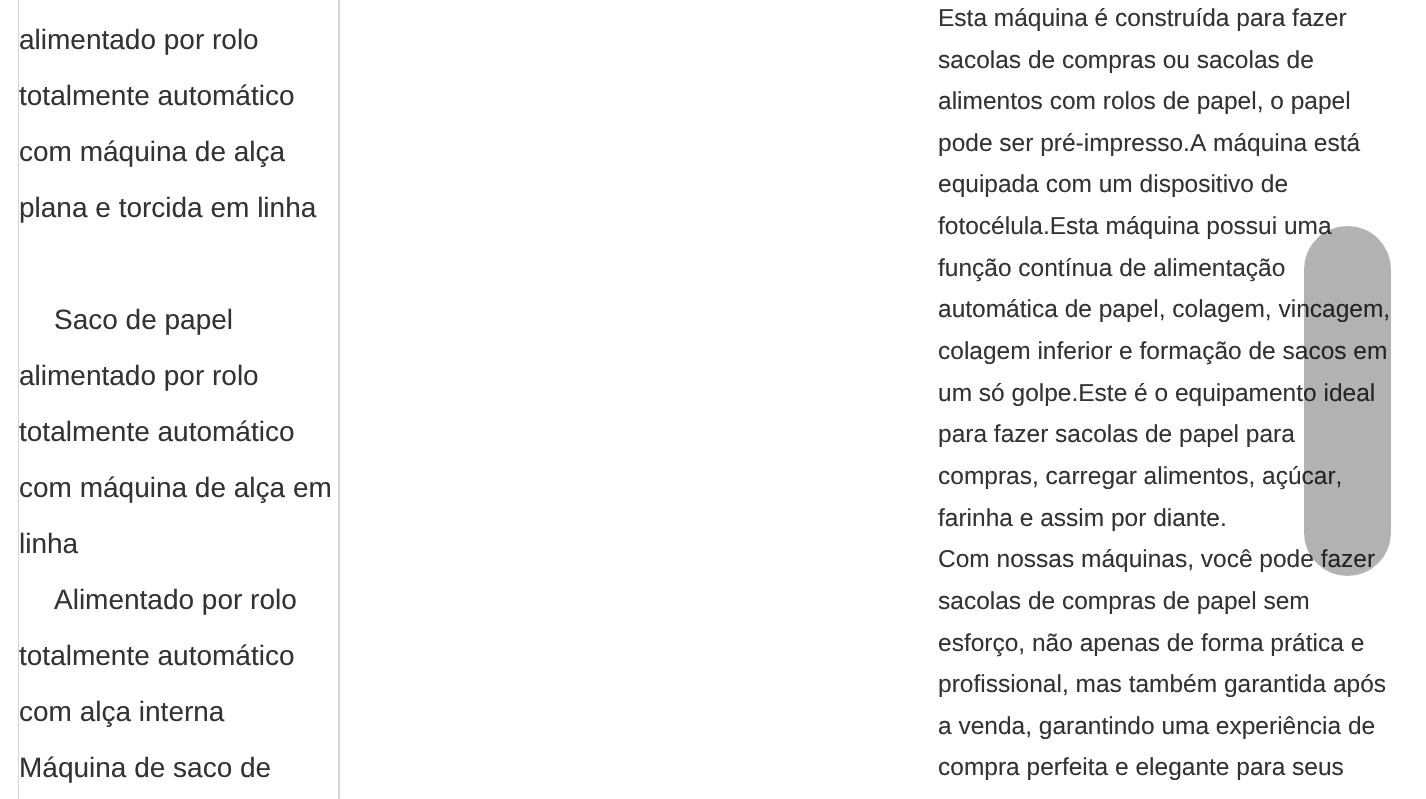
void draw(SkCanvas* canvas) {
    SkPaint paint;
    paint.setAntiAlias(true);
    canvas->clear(0xFFFFFFFF);
    paint.setStyle(SkPaint::kStroke_Style);
    paint.setStrokeWidth(2);
    paint.setColor(0xFFD6D6D6);
    canvas->drawRect(SkRect::MakeXYWH(19, -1, 320, 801), paint);
    paint.setStyle(SkPaint::kFill_Style);
    paint.setColor(0xFFFFFFFF);
    canvas->drawRect(SkRect::MakeXYWH(19, 0, 1, 799), paint);
    SkFont font1(fontMgr->matchFamilyStyle("Liberation Sans", SkFontStyle::Normal()), 28);
    font1.setSubpixel(true);
    paint.setColor(0xFF333333);
    canvas->drawString("alimentado por rolo", 19, 49, font1, paint);
    canvas->drawString("totalmente automático", 19, 105, font1, paint);
    canvas->drawString("com máquina de alça", 19, 161, font1, paint);
    canvas->drawString("plana e torcida em linha", 19, 217, font1, paint);
    canvas->drawString("Saco de papel", 54, 329, font1, paint);
    canvas->drawString("alimentado por rolo", 19, 385, font1, paint);
    canvas->drawString("totalmente automático", 19, 441, font1, paint);
    canvas->drawString("com máquina de alça em", 19, 497, font1, paint);
    canvas->drawString("linha", 19, 553, font1, paint);
    canvas->drawString("Alimentado por rolo", 54, 609, font1, paint);
    canvas->drawString("totalmente automático", 19, 665, font1, paint);
    canvas->drawString("com alça interna", 19, 721, font1, paint);
    canvas->drawString("Máquina de saco de", 19, 777, font1, paint);
    SkFont font2(fontMgr->matchFamilyStyle("Liberation Sans", SkFontStyle::Normal()), 24.5f);
    font2.setSubpixel(true);
    canvas->drawString("Esta máquina é construída para fazer", 938, 26, font2, paint);
    canvas->drawString("sacolas de compras ou sacolas de", 938, 68, font2, paint);
    canvas->drawString("alimentos com rolos de papel, o papel", 938, 109, font2, paint);
    canvas->drawString("pode ser pré-impresso.A máquina está", 938, 151, font2, paint);
    canvas->drawString("equipada com um dispositivo de", 938, 192, font2, paint);
    canvas->drawString("fotocélula.Esta máquina possui uma", 938, 234, font2, paint);
    canvas->drawString("função contínua de alimentação", 938, 276, font2, paint);
    canvas->drawString("automática de papel, colagem, vincagem,", 938, 317, font2, paint);
    canvas->drawString("colagem inferior e formação de sacos em", 938, 359, font2, paint);
    canvas->drawString("um só golpe.Este é o equipamento ideal", 938, 401, font2, paint);
    canvas->drawString("para fazer sacolas de papel para", 938, 442, font2, paint);
    canvas->drawString("compras, carregar alimentos, açúcar,", 938, 484, font2, paint);
    canvas->drawString("farinha e assim por diante.", 938, 526, font2, paint);
    canvas->drawString("Com nossas máquinas, você pode fazer", 938, 567, font2, paint);
    canvas->drawString("sacolas de compras de papel sem", 938, 609, font2, paint);
    canvas->drawString("esforço, não apenas de forma prática e", 938, 651, font2, paint);
    canvas->drawString("profissional, mas também garantida após", 938, 692, font2, paint);
    canvas->drawString("a venda, garantindo uma experiência de", 938, 734, font2, paint);
    canvas->drawString("compra perfeita e elegante para seus", 938, 775, font2, paint);
    paint.setColor(0x4D000000);
    canvas->drawRoundRect(SkRect::MakeXYWH(1304, 226, 87, 350), 43.5f, 43.5f, paint);
}
